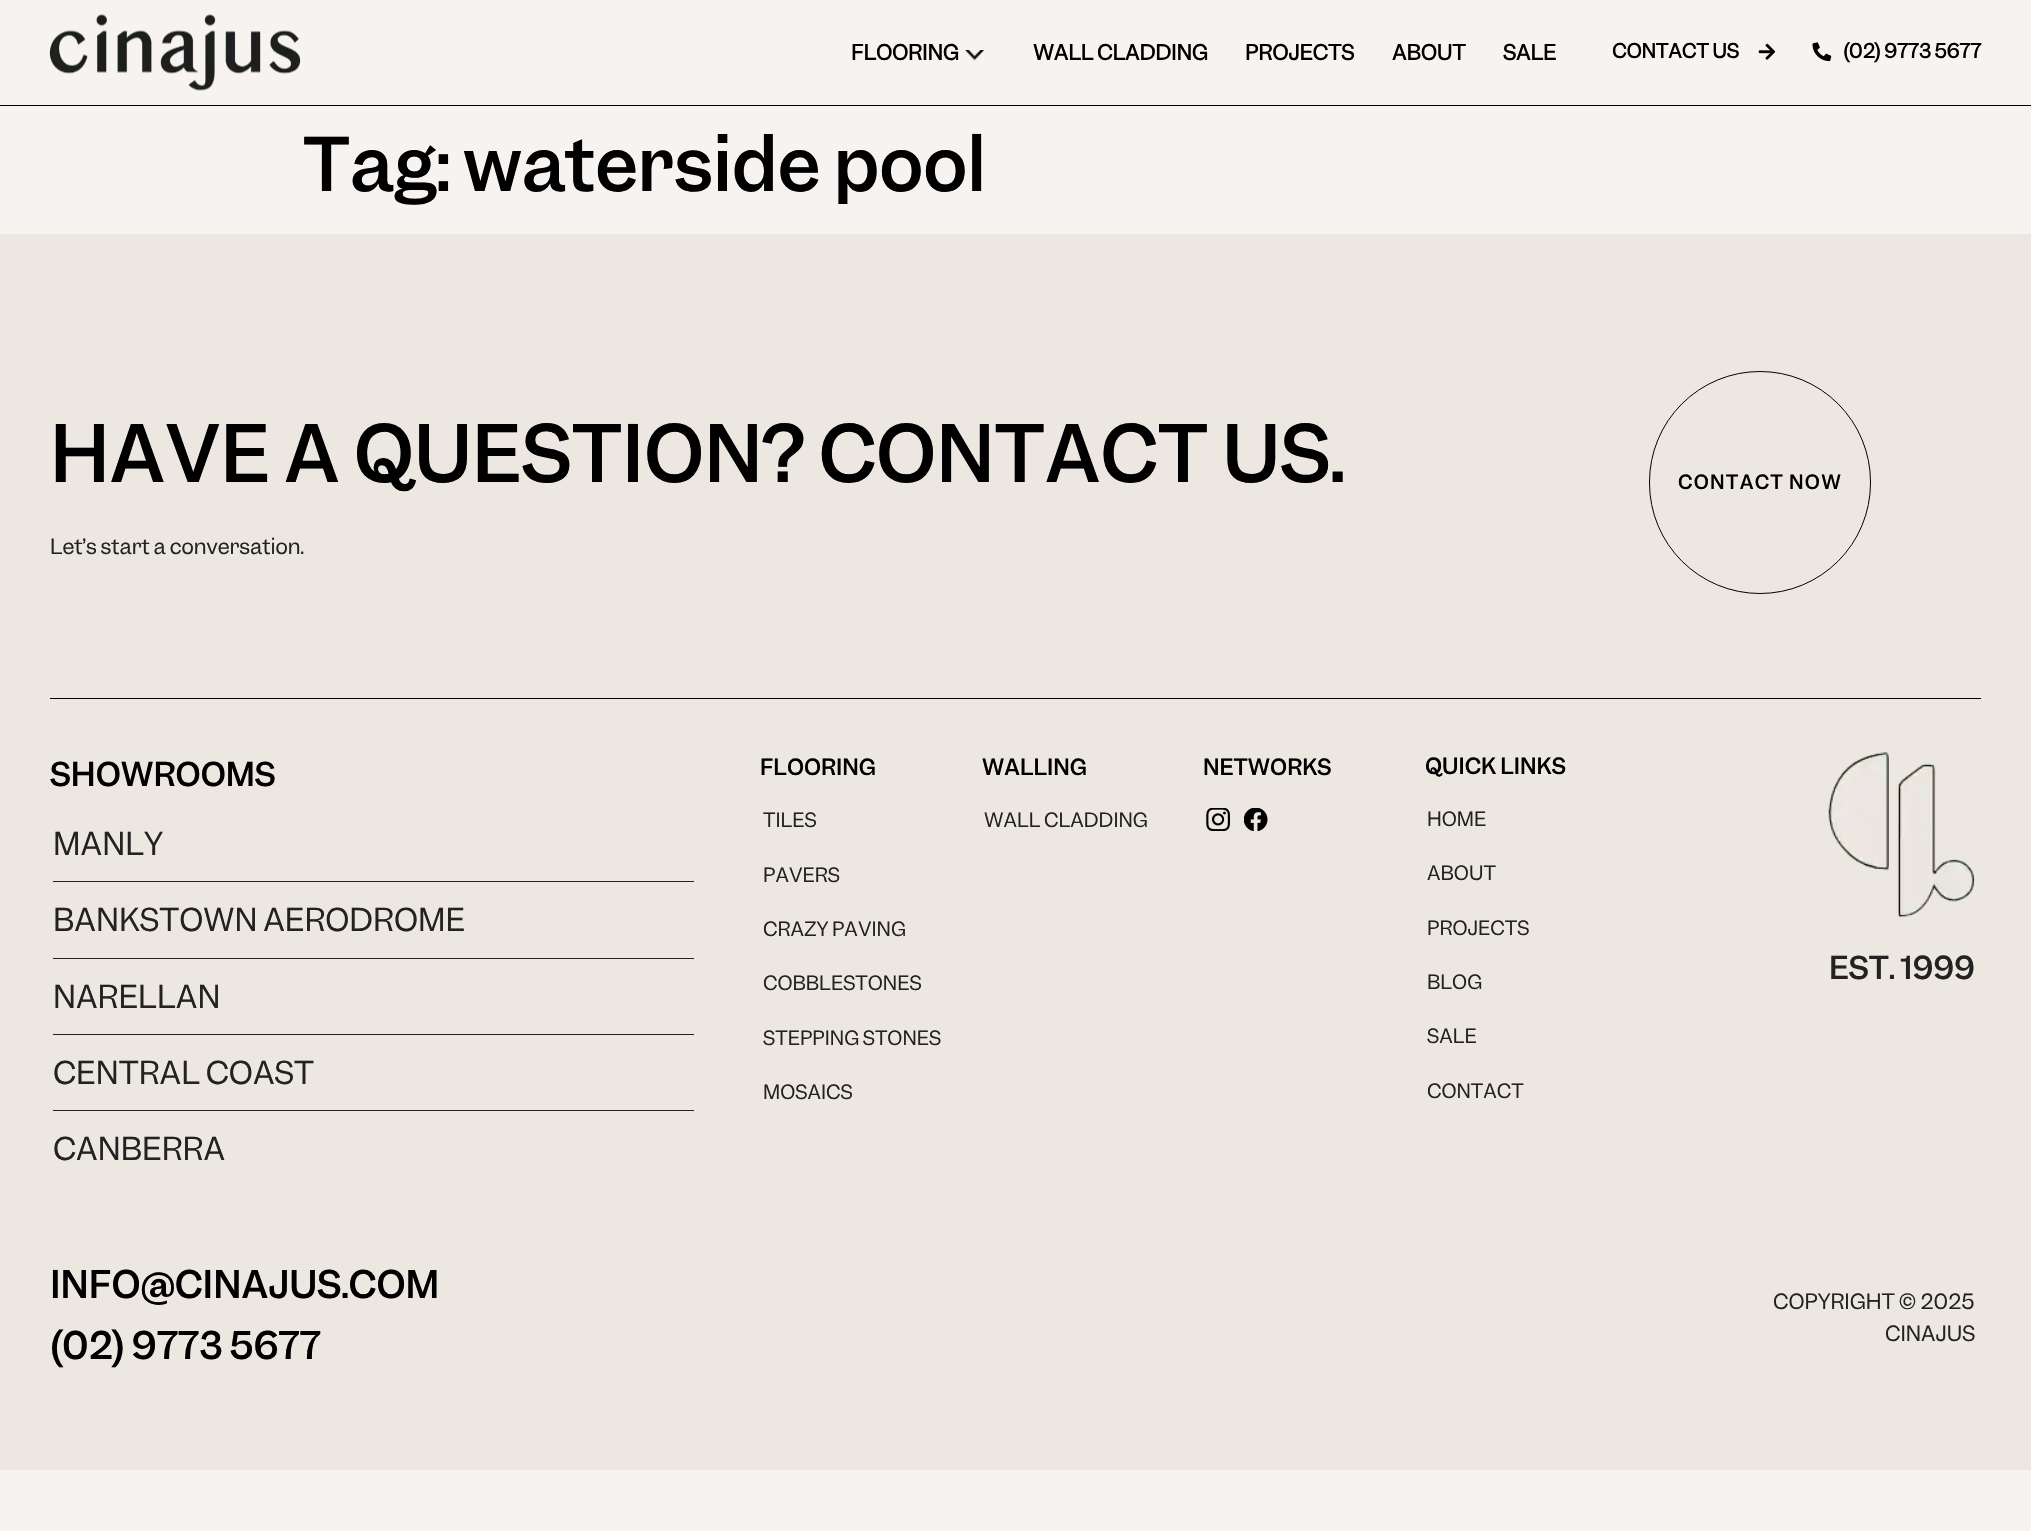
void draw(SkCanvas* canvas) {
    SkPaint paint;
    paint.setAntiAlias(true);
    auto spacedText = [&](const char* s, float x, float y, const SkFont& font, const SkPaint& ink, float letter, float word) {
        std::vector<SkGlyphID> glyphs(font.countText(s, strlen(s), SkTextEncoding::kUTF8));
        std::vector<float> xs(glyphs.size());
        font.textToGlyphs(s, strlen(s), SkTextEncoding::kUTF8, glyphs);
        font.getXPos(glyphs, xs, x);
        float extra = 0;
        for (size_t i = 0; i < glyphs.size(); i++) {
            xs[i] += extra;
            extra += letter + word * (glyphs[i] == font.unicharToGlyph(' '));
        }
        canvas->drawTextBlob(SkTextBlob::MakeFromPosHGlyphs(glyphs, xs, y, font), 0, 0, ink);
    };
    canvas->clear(0xFFF6F3F0);
    paint.setColor(0xFF000000);
    canvas->drawRect(SkRect::MakeXYWH(0, 105, 2031, 1), paint);
    canvas->drawImageRect(SkImages::DeferredFromEncodedData(SkData::MakeFromFileName("img1.png")), SkRect::MakeXYWH(49, 14, 252, 77), SkSamplingOptions());
    SkFont font1(fontMgr->matchFamilyStyle("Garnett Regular", SkFontStyle::Bold()), 20);
    font1.setSubpixel(true);
    canvas->drawString("FLOORING", 851, 60, font1, paint);
    canvas->drawImageRect(SkImages::DeferredFromEncodedData(SkData::MakeFromFileName("img2.png")), SkRect::MakeXYWH(965, 50, 19, 11), SkSamplingOptions());
    canvas->drawString("WALL CLADDING", 1033, 60, font1, paint);
    canvas->drawString("PROJECTS", 1245, 60, font1, paint);
    canvas->drawString("ABOUT", 1392, 60, font1, paint);
    canvas->drawString("SALE", 1503, 60, font1, paint);
    SkFont font2(fontMgr->matchFamilyStyle("Garnett Regular", SkFontStyle::Bold()), 18.75f);
    font2.setSubpixel(true);
    canvas->drawString("CONTACT US", 1612, 58, font2, paint);
    canvas->drawImageRect(SkImages::DeferredFromEncodedData(SkData::MakeFromFileName("img3.png")), SkRect::MakeXYWH(1758, 43, 18, 17), SkSamplingOptions());
    canvas->drawImageRect(SkImages::DeferredFromEncodedData(SkData::MakeFromFileName("img4.png")), SkRect::MakeXYWH(1812, 42, 20, 20), SkSamplingOptions());
    canvas->drawString("(02) 9773 5677", 1843, 58, font2, paint);
    SkFont font3(fontMgr->matchFamilyStyle("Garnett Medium", SkFontStyle(500, SkFontStyle::kNormal_Width, SkFontStyle::kUpright_Slant)), 70);
    font3.setSubpixel(true);
    canvas->drawString("Tag: waterside pool", 303, 191, font3, paint);
    paint.setColor(0xFFEDE7E1);
    canvas->drawRect(SkRect::MakeXYWH(0, 234, 2031, 1236), paint);
    SkFont font4(fontMgr->matchFamilyStyle("Garnett Medium", SkFontStyle(500, SkFontStyle::kNormal_Width, SkFontStyle::kUpright_Slant)), 75);
    font4.setSubpixel(true);
    paint.setColor(0xFF000000);
    canvas->drawString("HAVE A QUESTION? CONTACT US.", 50, 482, font4, paint);
    SkFont font5(fontMgr->matchFamilyStyle("Garnett Regular", SkFontStyle::Normal()), 20);
    font5.setSubpixel(true);
    paint.setColor(0xFF222222);
    canvas->drawString("Let’s start a conversation.", 50, 554, font5, paint);
    paint.setStyle(SkPaint::kStroke_Style);
    paint.setStrokeWidth(1);
    paint.setColor(0xFF000000);
    canvas->drawRoundRect(SkRect::MakeXYWH(1649.5f, 371.5f, 221, 222), 110.5f, 110.5f, paint);
    SkFont font6(fontMgr->matchFamilyStyle("Garnett Medium", SkFontStyle(500, SkFontStyle::kNormal_Width, SkFontStyle::kUpright_Slant)), 18.75f);
    font6.setSubpixel(true);
    paint.setStyle(SkPaint::kFill_Style);
    spacedText("CONTACT NOW", 1678, 489, font6, paint, 1.25f, 0);
    canvas->drawRect(SkRect::MakeXYWH(50, 698, 1931, 1), paint);
    SkFont font7(fontMgr->matchFamilyStyle("Garnett Medium", SkFontStyle(500, SkFontStyle::kNormal_Width, SkFontStyle::kUpright_Slant)), 31.25f);
    font7.setSubpixel(true);
    canvas->drawString("SHOWROOMS", 50, 786, font7, paint);
    SkFont font8(fontMgr->matchFamilyStyle("Garnett Regular", SkFontStyle::Normal()), 30);
    font8.setSubpixel(true);
    paint.setColor(0xFF222222);
    canvas->drawString("MANLY", 53, 855, font8, paint);
    canvas->drawRect(SkRect::MakeXYWH(53, 881, 641, 1), paint);
    canvas->drawString("BANKSTOWN AERODROME", 53, 931, font8, paint);
    canvas->drawRect(SkRect::MakeXYWH(53, 958, 641, 1), paint);
    canvas->drawString("NARELLAN", 53, 1008, font8, paint);
    canvas->drawRect(SkRect::MakeXYWH(53, 1034, 641, 1), paint);
    canvas->drawString("CENTRAL COAST", 53, 1084, font8, paint);
    canvas->drawRect(SkRect::MakeXYWH(53, 1110, 641, 1), paint);
    canvas->drawString("CANBERRA", 53, 1160, font8, paint);
    SkFont font9(fontMgr->matchFamilyStyle("Garnett Medium", SkFontStyle(500, SkFontStyle::kNormal_Width, SkFontStyle::kUpright_Slant)), 36.25f);
    font9.setSubpixel(true);
    paint.setColor(0xFF000000);
    canvas->drawString("INFO@CINAJUS.COM", 50, 1298, font9, paint);
    canvas->drawString("(02) 9773 5677", 50, 1359, font9, paint);
    SkFont font10(fontMgr->matchFamilyStyle("Garnett Medium", SkFontStyle(500, SkFontStyle::kNormal_Width, SkFontStyle::kUpright_Slant)), 21.25f);
    font10.setSubpixel(true);
    canvas->drawString("FLOORING", 760, 775, font10, paint);
    SkFont font11(fontMgr->matchFamilyStyle("Garnett Regular", SkFontStyle::Normal()), 18.75f);
    font11.setSubpixel(true);
    paint.setColor(0xFF222222);
    canvas->drawString("TILES", 763, 827, font11, paint);
    canvas->drawString("PAVERS", 763, 882, font11, paint);
    canvas->drawString("CRAZY PAVING", 763, 936, font11, paint);
    canvas->drawString("COBBLESTONES", 763, 990, font11, paint);
    canvas->drawString("STEPPING STONES", 763, 1045, font11, paint);
    canvas->drawString("MOSAICS", 763, 1099, font11, paint);
    paint.setColor(0xFF000000);
    canvas->drawString("WALLING", 982, 775, font10, paint);
    paint.setColor(0xFF222222);
    canvas->drawString("WALL CLADDING", 984, 827, font11, paint);
    paint.setColor(0xFF000000);
    canvas->drawString("NETWORKS", 1203, 775, font10, paint);
    canvas->drawImageRect(SkImages::DeferredFromEncodedData(SkData::MakeFromFileName("img5.png")), SkRect::MakeXYWH(1206, 808, 24, 23), SkSamplingOptions());
    canvas->drawImageRect(SkImages::DeferredFromEncodedData(SkData::MakeFromFileName("img6.png")), SkRect::MakeXYWH(1244, 808, 24, 23), SkSamplingOptions());
    canvas->drawString("QUICK LINKS", 1425, 774, font10, paint);
    paint.setColor(0xFF222222);
    canvas->drawString("HOME", 1427, 826, font11, paint);
    canvas->drawString("ABOUT", 1427, 880, font11, paint);
    canvas->drawString("PROJECTS", 1427, 935, font11, paint);
    canvas->drawString("BLOG", 1427, 989, font11, paint);
    canvas->drawString("SALE", 1427, 1043, font11, paint);
    canvas->drawString("CONTACT", 1427, 1098, font11, paint);
    canvas->drawImageRect(SkImages::DeferredFromEncodedData(SkData::MakeFromFileName("img7.png")), SkRect::MakeXYWH(1828, 752, 147, 166), SkSamplingOptions());
    SkFont font12(fontMgr->matchFamilyStyle("Garnett Medium", SkFontStyle(500, SkFontStyle::kNormal_Width, SkFontStyle::kUpright_Slant)), 30);
    font12.setSubpixel(true);
    canvas->drawString("EST. 1999", 1829, 979, font12, paint);
    canvas->drawString("COPYRIGHT © 2025", 1773, 1309, font5, paint);
    canvas->drawString("CINAJUS", 1885, 1341, font5, paint);
}
